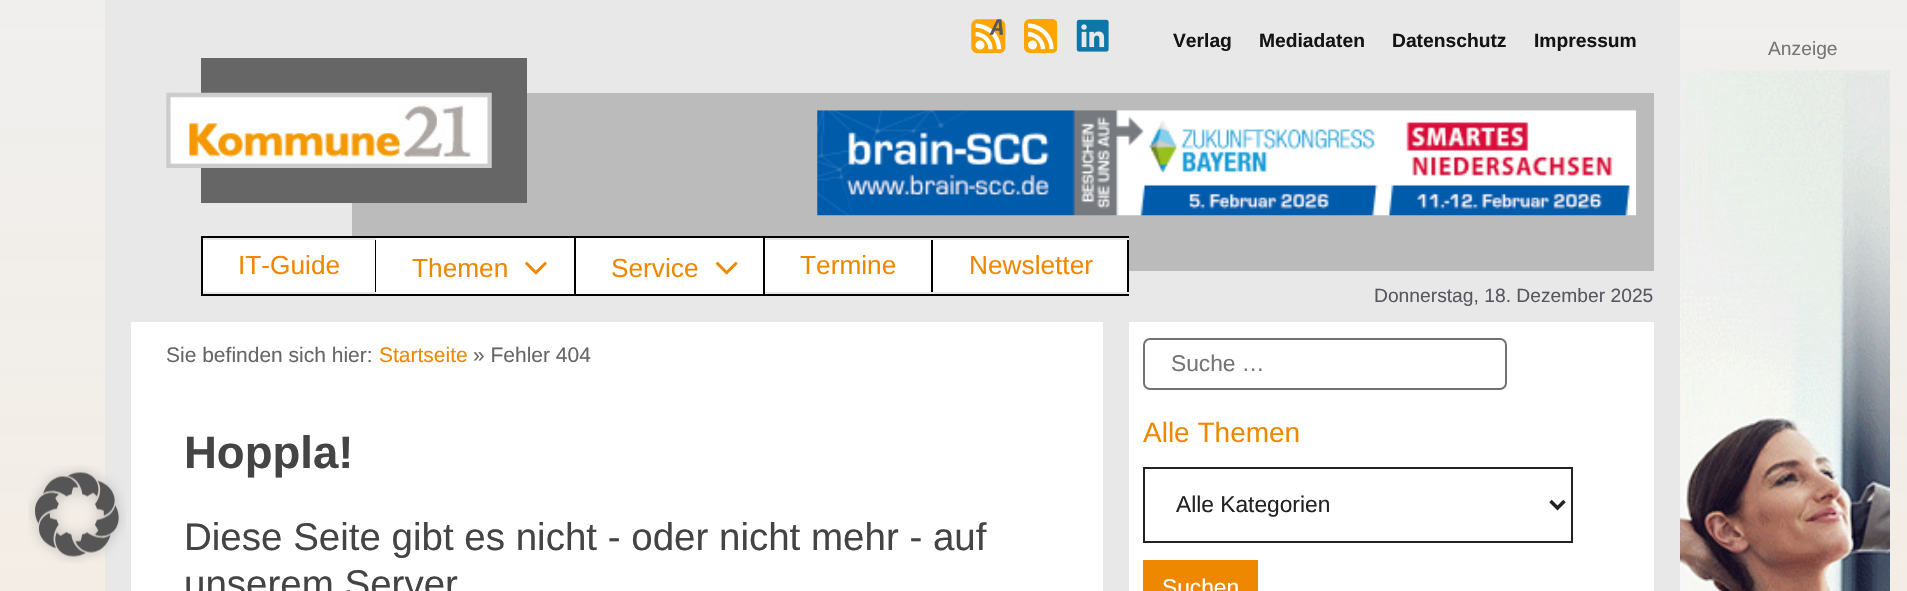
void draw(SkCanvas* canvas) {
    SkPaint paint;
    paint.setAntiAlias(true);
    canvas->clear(0xFFFFFFFF);
    canvas->drawImageRect(SkImages::DeferredFromEncodedData(SkData::MakeFromFileName("img1.png")), SkRect::MakeXYWH(0, 0, 1907, 591), SkSamplingOptions());
    paint.setColor(0xFFE9E8E8);
    canvas->drawRect(SkRect::MakeXYWH(105, 0, 1575, 591), paint);
    canvas->drawImageRect(SkImages::DeferredFromEncodedData(SkData::MakeFromFileName("img2.png")), SkRect::MakeXYWH(971, 19, 35, 34), SkSamplingOptions());
    canvas->drawImageRect(SkImages::DeferredFromEncodedData(SkData::MakeFromFileName("img3.png")), SkRect::MakeXYWH(1024, 19, 33, 34), SkSamplingOptions());
    canvas->drawImageRect(SkImages::DeferredFromEncodedData(SkData::MakeFromFileName("img4.png")), SkRect::MakeXYWH(1076, 19, 33, 33), SkSamplingOptions());
    SkFont font1(fontMgr->matchFamilyStyle("Liberation Sans", SkFontStyle::Bold()), 19.25f);
    font1.setSubpixel(true);
    paint.setColor(0xFF141414);
    canvas->drawString("Verlag", 1173, 47, font1, paint);
    canvas->drawString("Mediadaten", 1259, 47, font1, paint);
    canvas->drawString("Datenschutz", 1392, 47, font1, paint);
    canvas->drawString("Impressum", 1534, 47, font1, paint);
    paint.setColor(0xFFBBBBBB);
    canvas->drawRect(SkRect::MakeXYWH(352, 93, 1302, 178), paint);
    paint.setColor(0xFF666666);
    canvas->drawRect(SkRect::MakeXYWH(201, 58, 326, 145), paint);
    canvas->drawImageRect(SkImages::DeferredFromEncodedData(SkData::MakeFromFileName("img5.png")), SkRect::MakeXYWH(166, 92, 326, 76), SkSamplingOptions());
    canvas->drawImageRect(SkImages::DeferredFromEncodedData(SkData::MakeFromFileName("img6.png")), SkRect::MakeXYWH(817, 110, 820, 106), SkSamplingOptions());
    paint.setColor(0xFFE9E8E8);
    canvas->drawRect(SkRect::MakeXYWH(352, 238, 777, 33), paint);
    paint.setColor(0xFF000000);
    canvas->drawRect(SkRect::MakeXYWH(201, 236, 928, 2), paint);
    canvas->drawRect(SkRect::MakeXYWH(201, 294, 928, 2), paint);
    canvas->drawRect(SkRect::MakeXYWH(201, 236, 2, 60), paint);
    paint.setColor(0xFFFFFFFF);
    canvas->drawRect(SkRect::MakeXYWH(203, 240, 172, 52), paint);
    paint.setColor(0xFF000000);
    canvas->drawRect(SkRect::MakeXYWH(375, 240, 1, 52), paint);
    SkFont font2(fontMgr->matchFamilyStyle("Liberation Sans", SkFontStyle::Normal()), 26.25f);
    font2.setSubpixel(true);
    paint.setColor(0xFFEE8800);
    canvas->drawString("IT-Guide", 238, 274, font2, paint);
    paint.setColor(0xFFFFFFFF);
    canvas->drawRect(SkRect::MakeXYWH(376, 238, 198, 56), paint);
    paint.setColor(0xFF000000);
    canvas->drawRect(SkRect::MakeXYWH(574, 238, 2, 56), paint);
    paint.setColor(0xFFEE8800);
    canvas->drawString("Themen", 412, 277, font2, paint);
    canvas->drawImageRect(SkImages::DeferredFromEncodedData(SkData::MakeFromFileName("img7.png")), SkRect::MakeXYWH(525, 261, 22, 14), SkSamplingOptions());
    paint.setColor(0xFFFFFFFF);
    canvas->drawRect(SkRect::MakeXYWH(576, 238, 187, 56), paint);
    paint.setColor(0xFF000000);
    canvas->drawRect(SkRect::MakeXYWH(763, 238, 2, 56), paint);
    paint.setColor(0xFFEE8800);
    canvas->drawString("Service", 611, 277, font2, paint);
    canvas->drawImageRect(SkImages::DeferredFromEncodedData(SkData::MakeFromFileName("img8.png")), SkRect::MakeXYWH(715, 261, 23, 14), SkSamplingOptions());
    paint.setColor(0xFFFFFFFF);
    canvas->drawRect(SkRect::MakeXYWH(765, 240, 166, 52), paint);
    paint.setColor(0xFF000000);
    canvas->drawRect(SkRect::MakeXYWH(931, 240, 2, 52), paint);
    paint.setColor(0xFFEE8800);
    canvas->drawString("Termine", 800, 274, font2, paint);
    paint.setColor(0xFFFFFFFF);
    canvas->drawRect(SkRect::MakeXYWH(933, 240, 194, 52), paint);
    paint.setColor(0xFF000000);
    canvas->drawRect(SkRect::MakeXYWH(1127, 240, 2, 52), paint);
    paint.setColor(0xFFEE8800);
    canvas->drawString("Newsletter", 969, 274, font2, paint);
    SkFont font3(fontMgr->matchFamilyStyle("Liberation Sans", SkFontStyle::Normal()), 19.25f);
    font3.setSubpixel(true);
    paint.setColor(0xFF575760);
    canvas->drawString("Donnerstag, 18. Dezember 2025", 1374, 302, font3, paint);
    canvas->drawImageRect(SkImages::DeferredFromEncodedData(SkData::MakeFromFileName("img9.png")), SkRect::MakeXYWH(28, 465, 98, 98), SkSamplingOptions());
    paint.setColor(0xFF757575);
    canvas->drawString("Anzeige", 1768, 55, font3, paint);
    canvas->drawImageRect(SkImages::DeferredFromEncodedData(SkData::MakeFromFileName("img10.png")), SkRect::MakeXYWH(1680, 70, 210, 521), SkSamplingOptions());
    paint.setColor(0xFFFFFFFF);
    canvas->drawRect(SkRect::MakeXYWH(131, 322, 972, 269), paint);
    SkFont font4(fontMgr->matchFamilyStyle("Liberation Sans", SkFontStyle::Normal()), 21);
    font4.setSubpixel(true);
    paint.setColor(0xFF666666);
    canvas->drawString("Sie befinden sich hier:", 166, 362, font4, paint);
    paint.setColor(0xFFEE8800);
    canvas->drawString("Startseite", 379, 362, font4, paint);
    paint.setColor(0xFF666666);
    canvas->drawString("» Fehler 404", 473, 362, font4, paint);
    SkFont font5(fontMgr->matchFamilyStyle("Liberation Sans", SkFontStyle::Bold()), 45.5f);
    font5.setSubpixel(true);
    paint.setColor(0xFF444444);
    canvas->drawString("Hoppla!", 184, 468, font5, paint);
    SkFont font6(fontMgr->matchFamilyStyle("Liberation Sans", SkFontStyle::Normal()), 38.5f);
    font6.setSubpixel(true);
    canvas->drawString("Diese Seite gibt es nicht - oder nicht mehr - auf", 184, 550, font6, paint);
    canvas->drawString("unserem Server", 184, 597, font6, paint);
    paint.setColor(0xFFFFFFFF);
    canvas->drawRect(SkRect::MakeXYWH(1129, 322, 525, 269), paint);
    paint.setStyle(SkPaint::kStroke_Style);
    paint.setStrokeWidth(2);
    paint.setColor(0xFF757171);
    canvas->drawRoundRect(SkRect::MakeXYWH(1144, 339, 362, 50), 6, 6, paint);
    SkFont font7(fontMgr->matchFamilyStyle("Liberation Sans", SkFontStyle::Normal()), 22.75f);
    font7.setSubpixel(true);
    paint.setStyle(SkPaint::kFill_Style);
    paint.setColor(0xFF757575);
    canvas->drawString("Suche …", 1171, 371, font7, paint);
    SkFont font8(fontMgr->matchFamilyStyle("Liberation Sans", SkFontStyle::Normal()), 28);
    font8.setSubpixel(true);
    paint.setColor(0xFFEE8800);
    canvas->drawString("Alle Themen", 1143, 442, font8, paint);
    paint.setStyle(SkPaint::kStroke_Style);
    paint.setColor(0xFF222222);
    canvas->drawRect(SkRect::MakeXYWH(1144, 468, 428, 74), paint);
    paint.setStrokeWidth(3.5f);
    canvas->drawPath(SkPathBuilder().moveTo(1550.5f, 501).lineTo(1557.5f, 508).lineTo(1564.5f, 501).detach(), paint);
    paint.setStyle(SkPaint::kFill_Style);
    canvas->drawString("Alle Kategorien", 1176, 512, font7, paint);
    paint.setColor(0xFFEE8800);
    canvas->drawRect(SkRect::MakeXYWH(1143, 560, 115, 31), paint);
    paint.setColor(0xFFFFFFFF);
    canvas->drawString("Suchen", 1162, 595, font7, paint);
}
